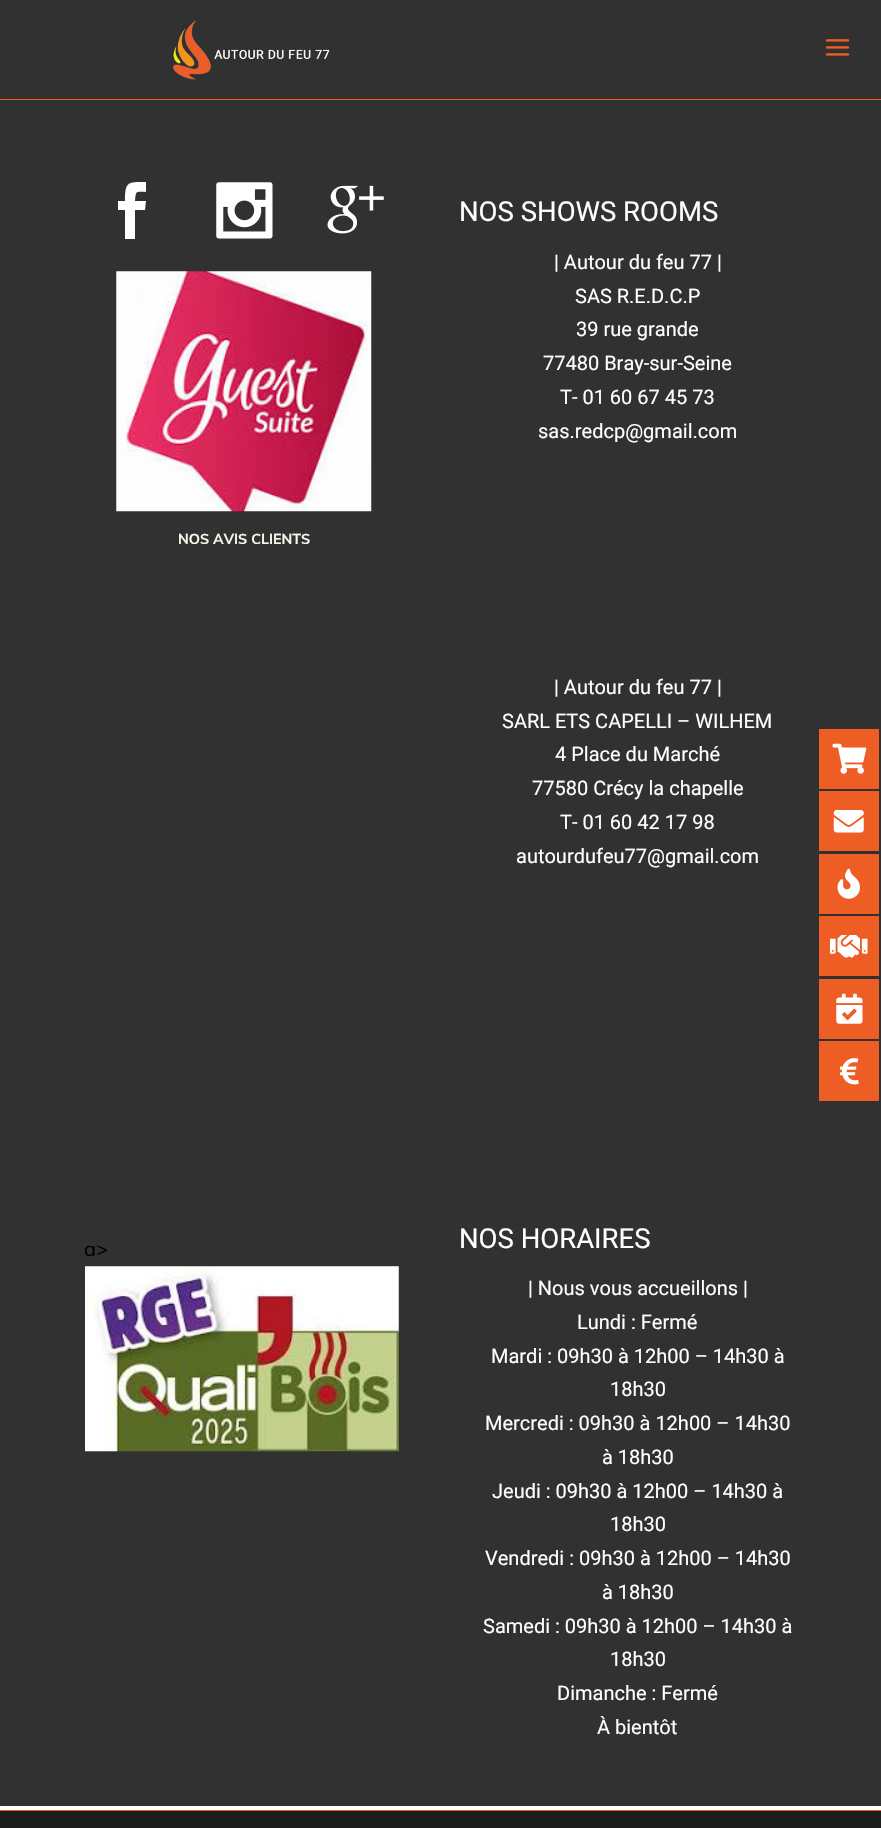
void draw(SkCanvas* canvas) {
    SkPaint paint;
    paint.setAntiAlias(true);
    canvas->clear(0xFFFFFFFF);
    paint.setColor(0xFF313131);
    canvas->drawRect(SkRect::MakeXYWH(0, 0, 881, 99), paint);
    paint.setColor(0xFFEE5D24);
    canvas->drawRect(SkRect::MakeXYWH(0, 99, 881, 1), paint);
    canvas->drawImageRect(SkImages::DeferredFromEncodedData(SkData::MakeFromFileName("img1.png")), SkRect::MakeXYWH(172, 20, 158, 60), SkSamplingOptions());
    canvas->drawImageRect(SkImages::DeferredFromEncodedData(SkData::MakeFromFileName("img2.png")), SkRect::MakeXYWH(825, 39, 25, 17), SkSamplingOptions());
    paint.setColor(0xFF313131);
    canvas->drawRect(SkRect::MakeXYWH(0, 100, 881, 1706), paint);
    paint.setColor(0xFFFFFFFF);
    canvas->drawPath(SkPathBuilder().moveTo(125, 239).lineTo(125, 210).lineTo(118, 210).lineTo(118, 201).lineTo(125, 201).cubicTo(125, 181, 128, 182, 146, 182).lineTo(146, 192).cubicTo(136, 192, 136, 190, 135, 201).lineTo(146, 201).lineTo(145, 210).lineTo(135, 210).lineTo(135, 239).close().detach(), paint);
    canvas->drawImageRect(SkImages::DeferredFromEncodedData(SkData::MakeFromFileName("img3.png")), SkRect::MakeXYWH(216, 182, 57, 57), SkSamplingOptions());
    canvas->drawImageRect(SkImages::DeferredFromEncodedData(SkData::MakeFromFileName("img4.png")), SkRect::MakeXYWH(327, 185, 57, 49), SkSamplingOptions());
    canvas->drawImageRect(SkImages::DeferredFromEncodedData(SkData::MakeFromFileName("img5.png")), SkRect::MakeXYWH(116, 271, 256, 241), SkSamplingOptions());
    SkFont font1(fontMgr->matchFamilyStyle("Muli", SkFontStyle::Bold()), 14.25f);
    font1.setSubpixel(true);
    paint.setColor(0xFFFAF7EC);
    canvas->drawString("NOS AVIS CLIENTS", 178, 544, font1, paint);
    SkFont font2(fontMgr->matchFamilyStyle("Roboto", SkFontStyle::Normal()), 27.5f);
    font2.setSubpixel(true);
    paint.setColor(0xFFFFFFFF);
    canvas->drawString("NOS SHOWS ROOMS", 459, 221, font2, paint);
    SkFont font3(fontMgr->matchFamilyStyle("Roboto", SkFontStyle::Normal()), 20);
    font3.setSubpixel(true);
    canvas->drawString("| Autour du feu 77 |", 554, 269, font3, paint);
    canvas->drawString("SAS R.E.D.C.P", 575, 303, font3, paint);
    canvas->drawString("39 rue grande", 576, 336, font3, paint);
    canvas->drawString("77480 Bray-sur-Seine", 543, 370, font3, paint);
    canvas->drawString("T- 01 60 67 45 73", 560, 404, font3, paint);
    canvas->drawString("sas.redcp@gmail.com", 538, 438, font3, paint);
    canvas->drawString("| Autour du feu 77 |", 554, 694, font3, paint);
    canvas->drawString("SARL ETS CAPELLI – WILHEM", 502, 728, font3, paint);
    canvas->drawString("4 Place du Marché", 555, 761, font3, paint);
    canvas->drawString("77580 Crécy la chapelle", 532, 795, font3, paint);
    canvas->drawString("T- 01 60 42 17 98", 560, 829, font3, paint);
    canvas->drawString("autourdufeu77@gmail.com", 516, 863, font3, paint);
    SkFont font4(fontMgr->matchFamilyStyle("Muli", SkFontStyle::Normal()), 20);
    font4.setSubpixel(true);
    paint.setColor(0xFF000000);
    canvas->drawString("a>", 84, 1256, font4, paint);
    canvas->drawImageRect(SkImages::DeferredFromEncodedData(SkData::MakeFromFileName("img6.png")), SkRect::MakeXYWH(85, 1266, 314, 186), SkSamplingOptions());
    paint.setColor(0xFFFFFFFF);
    canvas->drawString("NOS HORAIRES", 459, 1248, font2, paint);
    canvas->drawString("| Nous vous accueillons |", 528, 1295, font3, paint);
    canvas->drawString("Lundi : Fermé", 577, 1329, font3, paint);
    canvas->drawString("Mardi : 09h30 à 12h00 – 14h30 à", 491, 1363, font3, paint);
    canvas->drawString("18h30", 610, 1396, font3, paint);
    canvas->drawString("Mercredi : 09h30 à 12h00 – 14h30", 485, 1430, font3, paint);
    canvas->drawString("à 18h30", 602, 1464, font3, paint);
    canvas->drawString("Jeudi : 09h30 à 12h00 – 14h30 à", 492, 1498, font3, paint);
    canvas->drawString("18h30", 610, 1531, font3, paint);
    canvas->drawString("Vendredi : 09h30 à 12h00 – 14h30", 485, 1565, font3, paint);
    canvas->drawString("à 18h30", 602, 1599, font3, paint);
    canvas->drawString("Samedi : 09h30 à 12h00 – 14h30 à", 483, 1633, font3, paint);
    canvas->drawString("18h30", 610, 1666, font3, paint);
    canvas->drawString("Dimanche : Fermé", 557, 1700, font3, paint);
    canvas->drawString("À bientôt", 597, 1734, font3, paint);
    paint.setColor(0xFF1C1C1C);
    canvas->drawRect(SkRect::MakeXYWH(0, 1811, 881, 17), paint);
    paint.setColor(0xFFEE5D24);
    canvas->drawRect(SkRect::MakeXYWH(0, 1810, 881, 1), paint);
    canvas->drawRect(SkRect::MakeXYWH(819, 729, 60, 60), paint);
    canvas->drawImageRect(SkImages::DeferredFromEncodedData(SkData::MakeFromFileName("img7.png")), SkRect::MakeXYWH(832, 743, 35, 31), SkSamplingOptions());
    canvas->drawRect(SkRect::MakeXYWH(819, 791, 60, 60), paint);
    canvas->drawImageRect(SkImages::DeferredFromEncodedData(SkData::MakeFromFileName("img8.png")), SkRect::MakeXYWH(833, 810, 31, 23), SkSamplingOptions());
    canvas->drawRect(SkRect::MakeXYWH(819, 854, 60, 60), paint);
    canvas->drawImageRect(SkImages::DeferredFromEncodedData(SkData::MakeFromFileName("img9.png")), SkRect::MakeXYWH(837, 868, 23, 31), SkSamplingOptions());
    canvas->drawRect(SkRect::MakeXYWH(819, 916, 60, 60), paint);
    canvas->drawImageRect(SkImages::DeferredFromEncodedData(SkData::MakeFromFileName("img10.png")), SkRect::MakeXYWH(830, 935, 38, 23), SkSamplingOptions());
    canvas->drawRect(SkRect::MakeXYWH(819, 979, 60, 60), paint);
    canvas->drawImageRect(SkImages::DeferredFromEncodedData(SkData::MakeFromFileName("img11.png")), SkRect::MakeXYWH(836, 993, 27, 31), SkSamplingOptions());
    canvas->drawRect(SkRect::MakeXYWH(819, 1041, 60, 60), paint);
    canvas->drawImageRect(SkImages::DeferredFromEncodedData(SkData::MakeFromFileName("img12.png")), SkRect::MakeXYWH(840, 1058, 19, 27), SkSamplingOptions());
}
